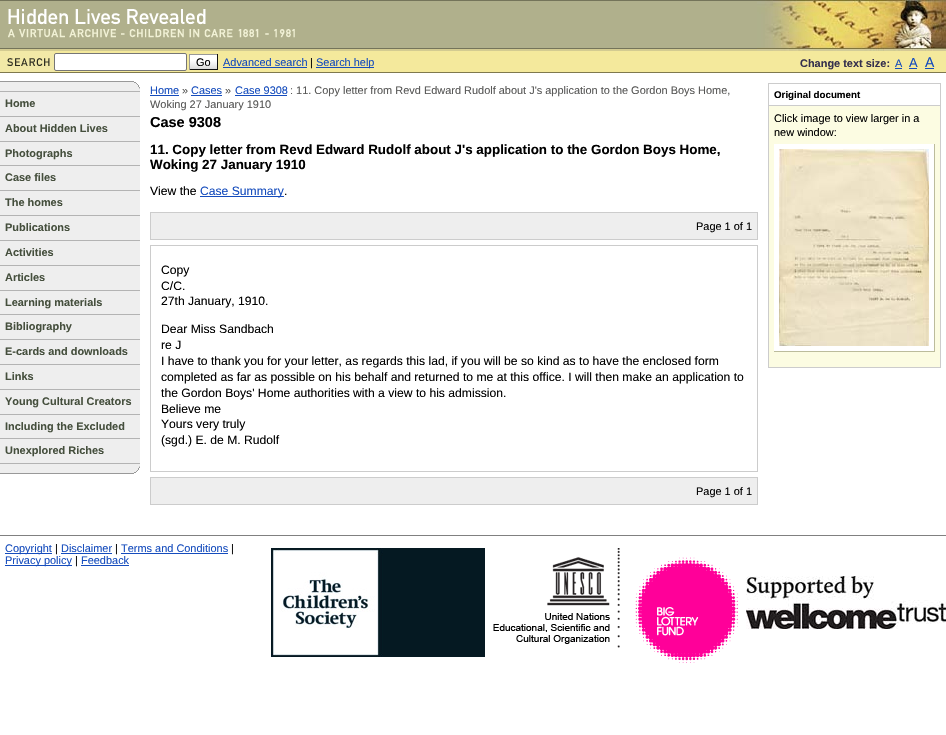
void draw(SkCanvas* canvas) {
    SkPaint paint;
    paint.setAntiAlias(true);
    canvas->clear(0xFFFFFFFF);
    canvas->drawImageRect(SkImages::DeferredFromEncodedData(SkData::MakeFromFileName("img1.png")), SkRect::MakeXYWH(0, 0, 308, 51), SkSamplingOptions());
    canvas->drawImageRect(SkImages::DeferredFromEncodedData(SkData::MakeFromFileName("img2.png")), SkRect::MakeXYWH(308, 0, 449, 51), SkSamplingOptions());
    canvas->drawImageRect(SkImages::DeferredFromEncodedData(SkData::MakeFromFileName("img3.png")), SkRect::MakeXYWH(757, 0, 189, 51), SkSamplingOptions());
    paint.setColor(0xFF7F794E);
    canvas->drawRect(SkRect::MakeXYWH(0, 72, 946, 1), paint);
    canvas->drawImageRect(SkImages::DeferredFromEncodedData(SkData::MakeFromFileName("img4.png")), SkRect::MakeXYWH(0, 51, 54, 21), SkSamplingOptions());
    paint.setColor(0xFFF4E99C);
    canvas->drawRect(SkRect::MakeXYWH(54, 51, 892, 21), paint);
    paint.setColor(0xFFFFFFFF);
    canvas->drawRoundRect(SkRect::MakeXYWH(54.5f, 53.5f, 132, 17), 1.5f, 1.5f, paint);
    paint.setStyle(SkPaint::kStroke_Style);
    paint.setStrokeWidth(1);
    paint.setColor(0xFF767676);
    canvas->drawRoundRect(SkRect::MakeXYWH(54.5f, 53.5f, 132, 17), 1.5f, 1.5f, paint);
    canvas->drawImageRect(SkImages::DeferredFromEncodedData(SkData::MakeFromFileName("img5.png")), SkRect::MakeXYWH(190, 55, 27, 14), SkSamplingOptions());
    paint.setStyle(SkPaint::kFill_Style);
    paint.setColor(0xFF999999);
    canvas->drawRect(SkRect::MakeXYWH(189, 54, 29, 1), paint);
    paint.setColor(0xFF111111);
    canvas->drawRect(SkRect::MakeXYWH(217, 54, 1, 16), paint);
    canvas->drawRect(SkRect::MakeXYWH(189, 69, 29, 1), paint);
    paint.setColor(0xFF999999);
    canvas->drawRect(SkRect::MakeXYWH(189, 54, 1, 16), paint);
    SkFont font1(fontMgr->matchFamilyStyle("Liberation Sans", SkFontStyle::Normal()), 10.95f);
    font1.setSubpixel(true);
    paint.setColor(0xFF000000);
    canvas->drawString("Go", 196, 66, font1, paint);
    paint.setColor(0xFF154CBD);
    canvas->drawString("Advanced search", 223, 66, font1, paint);
    canvas->drawRect(SkRect::MakeXYWH(223, 67, 84, 1), paint);
    paint.setColor(0xFF000000);
    canvas->drawString("|", 310, 66, font1, paint);
    paint.setColor(0xFF154CBD);
    canvas->drawRect(SkRect::MakeXYWH(316, 67, 58, 1), paint);
    canvas->drawString("Search help", 316, 66, font1, paint);
    SkFont font2(fontMgr->matchFamilyStyle("Liberation Sans", SkFontStyle::Bold()), 10.95f);
    font2.setSubpixel(true);
    paint.setColor(0xFF35304D);
    canvas->drawString("Change text size:", 800, 67, font2, paint);
    paint.setColor(0xFF154CBD);
    canvas->drawString("A", 895, 67, font1, paint);
    canvas->drawRect(SkRect::MakeXYWH(895, 68, 7, 1), paint);
    SkFont font3(fontMgr->matchFamilyStyle("Liberation Sans", SkFontStyle::Normal()), 13);
    font3.setSubpixel(true);
    canvas->drawString("A", 909, 67, font3, paint);
    canvas->drawRect(SkRect::MakeXYWH(909, 68, 8, 1), paint);
    SkFont font4(fontMgr->matchFamilyStyle("Liberation Sans", SkFontStyle::Normal()), 14);
    font4.setSubpixel(true);
    canvas->drawString("A", 925, 67, font4, paint);
    canvas->drawRect(SkRect::MakeXYWH(925, 68, 9, 1), paint);
    paint.setColor(0xFFB3B3B3);
    canvas->drawRect(SkRect::MakeXYWH(0, 91, 140, 1), paint);
    canvas->drawImageRect(SkImages::DeferredFromEncodedData(SkData::MakeFromFileName("img6.png")), SkRect::MakeXYWH(0, 73, 140, 18), SkSamplingOptions());
    paint.setColor(0xFFEEEEEE);
    canvas->drawRect(SkRect::MakeXYWH(0, 92, 140, 24), paint);
    paint.setColor(0xFFB3B3B3);
    canvas->drawRect(SkRect::MakeXYWH(0, 116, 140, 1), paint);
    paint.setColor(0xFF454F3D);
    canvas->drawString("Home", 5, 107, font2, paint);
    paint.setColor(0xFFEEEEEE);
    canvas->drawRect(SkRect::MakeXYWH(0, 117, 140, 24), paint);
    paint.setColor(0xFFB3B3B3);
    canvas->drawRect(SkRect::MakeXYWH(0, 141, 140, 1), paint);
    paint.setColor(0xFF454F3D);
    canvas->drawString("About Hidden Lives", 5, 132, font2, paint);
    paint.setColor(0xFFEEEEEE);
    canvas->drawRect(SkRect::MakeXYWH(0, 142, 140, 23), paint);
    paint.setColor(0xFFB3B3B3);
    canvas->drawRect(SkRect::MakeXYWH(0, 165, 140, 1), paint);
    paint.setColor(0xFF454F3D);
    canvas->drawString("Photographs", 5, 157, font2, paint);
    paint.setColor(0xFFEEEEEE);
    canvas->drawRect(SkRect::MakeXYWH(0, 166, 140, 24), paint);
    paint.setColor(0xFFB3B3B3);
    canvas->drawRect(SkRect::MakeXYWH(0, 190, 140, 1), paint);
    paint.setColor(0xFF454F3D);
    canvas->drawString("Case files", 5, 181, font2, paint);
    paint.setColor(0xFFEEEEEE);
    canvas->drawRect(SkRect::MakeXYWH(0, 191, 140, 24), paint);
    paint.setColor(0xFFB3B3B3);
    canvas->drawRect(SkRect::MakeXYWH(0, 215, 140, 1), paint);
    paint.setColor(0xFF454F3D);
    canvas->drawString("The homes", 5, 206, font2, paint);
    paint.setColor(0xFFEEEEEE);
    canvas->drawRect(SkRect::MakeXYWH(0, 216, 140, 24), paint);
    paint.setColor(0xFFB3B3B3);
    canvas->drawRect(SkRect::MakeXYWH(0, 240, 140, 1), paint);
    paint.setColor(0xFF454F3D);
    canvas->drawString("Publications", 5, 231, font2, paint);
    paint.setColor(0xFFEEEEEE);
    canvas->drawRect(SkRect::MakeXYWH(0, 241, 140, 24), paint);
    paint.setColor(0xFFB3B3B3);
    canvas->drawRect(SkRect::MakeXYWH(0, 265, 140, 1), paint);
    paint.setColor(0xFF454F3D);
    canvas->drawString("Activities", 5, 256, font2, paint);
    paint.setColor(0xFFEEEEEE);
    canvas->drawRect(SkRect::MakeXYWH(0, 266, 140, 24), paint);
    paint.setColor(0xFFB3B3B3);
    canvas->drawRect(SkRect::MakeXYWH(0, 290, 140, 1), paint);
    paint.setColor(0xFF454F3D);
    canvas->drawString("Articles", 5, 281, font2, paint);
    paint.setColor(0xFFEEEEEE);
    canvas->drawRect(SkRect::MakeXYWH(0, 291, 140, 23), paint);
    paint.setColor(0xFFB3B3B3);
    canvas->drawRect(SkRect::MakeXYWH(0, 314, 140, 1), paint);
    paint.setColor(0xFF454F3D);
    canvas->drawString("Learning materials", 5, 306, font2, paint);
    paint.setColor(0xFFEEEEEE);
    canvas->drawRect(SkRect::MakeXYWH(0, 315, 140, 24), paint);
    paint.setColor(0xFFB3B3B3);
    canvas->drawRect(SkRect::MakeXYWH(0, 339, 140, 1), paint);
    paint.setColor(0xFF454F3D);
    canvas->drawString("Bibliography", 5, 330, font2, paint);
    paint.setColor(0xFFEEEEEE);
    canvas->drawRect(SkRect::MakeXYWH(0, 340, 140, 24), paint);
    paint.setColor(0xFFB3B3B3);
    canvas->drawRect(SkRect::MakeXYWH(0, 364, 140, 1), paint);
    paint.setColor(0xFF454F3D);
    canvas->drawString("E-cards and downloads", 5, 355, font2, paint);
    paint.setColor(0xFFEEEEEE);
    canvas->drawRect(SkRect::MakeXYWH(0, 365, 140, 24), paint);
    paint.setColor(0xFFB3B3B3);
    canvas->drawRect(SkRect::MakeXYWH(0, 389, 140, 1), paint);
    paint.setColor(0xFF454F3D);
    canvas->drawString("Links", 5, 380, font2, paint);
    paint.setColor(0xFFEEEEEE);
    canvas->drawRect(SkRect::MakeXYWH(0, 390, 140, 24), paint);
    paint.setColor(0xFFB3B3B3);
    canvas->drawRect(SkRect::MakeXYWH(0, 414, 140, 1), paint);
    paint.setColor(0xFF454F3D);
    canvas->drawString("Young Cultural Creators", 5, 405, font2, paint);
    paint.setColor(0xFFEEEEEE);
    canvas->drawRect(SkRect::MakeXYWH(0, 415, 140, 23), paint);
    paint.setColor(0xFFB3B3B3);
    canvas->drawRect(SkRect::MakeXYWH(0, 438, 140, 1), paint);
    paint.setColor(0xFF454F3D);
    canvas->drawString("Including the Excluded", 5, 430, font2, paint);
    paint.setColor(0xFFEEEEEE);
    canvas->drawRect(SkRect::MakeXYWH(0, 439, 140, 24), paint);
    paint.setColor(0xFFB3B3B3);
    canvas->drawRect(SkRect::MakeXYWH(0, 463, 140, 1), paint);
    paint.setColor(0xFF454F3D);
    canvas->drawString("Unexplored Riches", 5, 454, font2, paint);
    canvas->drawImageRect(SkImages::DeferredFromEncodedData(SkData::MakeFromFileName("img7.png")), SkRect::MakeXYWH(0, 464, 140, 10), SkSamplingOptions());
    paint.setColor(0xFF154CBD);
    canvas->drawString("Home", 150, 94, font1, paint);
    canvas->drawRect(SkRect::MakeXYWH(150, 95, 29, 1), paint);
    paint.setColor(0xFF575756);
    canvas->drawString("»", 182, 94, font1, paint);
    paint.setColor(0xFF154CBD);
    canvas->drawString("Cases", 191, 94, font1, paint);
    canvas->drawRect(SkRect::MakeXYWH(191, 95, 31, 1), paint);
    paint.setColor(0xFF575756);
    canvas->drawString("»", 225, 94, font1, paint);
    paint.setColor(0xFF154CBD);
    canvas->drawString("Case 9308", 235, 94, font1, paint);
    canvas->drawRect(SkRect::MakeXYWH(235, 95, 52, 1), paint);
    paint.setColor(0xFF575756);
    canvas->drawString(": 11. Copy letter from Revd Edward Rudolf about J's application to the Gordon Boys Home,", 290, 94, font1, paint);
    canvas->drawString("Woking 27 January 1910", 150, 108, font1, paint);
    SkFont font5(fontMgr->matchFamilyStyle("Liberation Sans", SkFontStyle::Bold()), 14.5f);
    font5.setSubpixel(true);
    paint.setColor(0xFF000000);
    canvas->drawString("Case 9308", 150, 127, font5, paint);
    SkFont font6(fontMgr->matchFamilyStyle("Liberation Sans", SkFontStyle::Bold()), 13.4f);
    font6.setSubpixel(true);
    canvas->drawString("11. Copy letter from Revd Edward Rudolf about J's application to the Gordon Boys Home,", 150, 154, font6, paint);
    canvas->drawString("Woking 27 January 1910", 150, 169, font6, paint);
    SkFont font7(fontMgr->matchFamilyStyle("Liberation Sans", SkFontStyle::Normal()), 12.15f);
    font7.setSubpixel(true);
    canvas->drawString("View the", 150, 195, font7, paint);
    paint.setColor(0xFF154CBD);
    canvas->drawRect(SkRect::MakeXYWH(200, 196, 84, 1), paint);
    canvas->drawString("Case Summary", 200, 195, font7, paint);
    paint.setColor(0xFF000000);
    canvas->drawString(".", 284, 195, font7, paint);
    paint.setColor(0xFFEEEEEE);
    canvas->drawRect(SkRect::MakeXYWH(150.5f, 212.5f, 607, 27), paint);
    paint.setStyle(SkPaint::kStroke_Style);
    paint.setColor(0xFFCCCCCC);
    canvas->drawRect(SkRect::MakeXYWH(150.5f, 212.5f, 607, 27), paint);
    paint.setStyle(SkPaint::kFill_Style);
    paint.setColor(0xFF000000);
    canvas->drawString("Page 1 of 1", 696, 230, font1, paint);
    paint.setStyle(SkPaint::kStroke_Style);
    paint.setColor(0xFFCCCCCC);
    canvas->drawRect(SkRect::MakeXYWH(150.5f, 245.5f, 607, 226), paint);
    paint.setStyle(SkPaint::kFill_Style);
    paint.setColor(0xFF000000);
    canvas->drawString("Copy", 161, 274, font7, paint);
    canvas->drawString("C/C.", 161, 290, font7, paint);
    canvas->drawString("27th January, 1910.", 161, 305, font7, paint);
    canvas->drawString("Dear Miss Sandbach", 161, 333, font7, paint);
    canvas->drawString("re J", 161, 349, font7, paint);
    canvas->drawString("I have to thank you for your letter, as regards this lad, if you will be so kind as to have the enclosed form", 161, 365, font7, paint);
    canvas->drawString("completed as far as possible on his behalf and returned to me at this office. I will then make an application to", 161, 381, font7, paint);
    canvas->drawString("the Gordon Boys' Home authorities with a view to his admission.", 161, 397, font7, paint);
    canvas->drawString("Believe me", 161, 413, font7, paint);
    canvas->drawString("Yours very truly", 161, 428, font7, paint);
    canvas->drawString("(sgd.) E. de M. Rudolf", 161, 444, font7, paint);
    paint.setColor(0xFFEEEEEE);
    canvas->drawRect(SkRect::MakeXYWH(150.5f, 477.5f, 607, 27), paint);
    paint.setStyle(SkPaint::kStroke_Style);
    paint.setColor(0xFFCCCCCC);
    canvas->drawRect(SkRect::MakeXYWH(150.5f, 477.5f, 607, 27), paint);
    paint.setStyle(SkPaint::kFill_Style);
    paint.setColor(0xFF000000);
    canvas->drawString("Page 1 of 1", 696, 495, font1, paint);
    paint.setColor(0xFFFCFCE2);
    canvas->drawRect(SkRect::MakeXYWH(769, 106, 171, 261), paint);
    paint.setStyle(SkPaint::kStroke_Style);
    paint.setColor(0xFFCCCCCC);
    canvas->drawRect(SkRect::MakeXYWH(768.5f, 83.5f, 172, 284), paint);
    paint.setStyle(SkPaint::kFill_Style);
    canvas->drawRect(SkRect::MakeXYWH(769, 105, 171, 1), paint);
    SkFont font8(fontMgr->matchFamilyStyle("Liberation Sans", SkFontStyle::Bold()), 9.75f);
    font8.setSubpixel(true);
    paint.setColor(0xFF000000);
    canvas->drawString("Original document", 774, 98, font8, paint);
    canvas->drawString("Click image to view larger in a", 774, 122, font1, paint);
    canvas->drawString("new window:", 774, 136, font1, paint);
    paint.setColor(0xFFFFFFFF);
    canvas->drawRect(SkRect::MakeXYWH(774, 144, 160, 207), paint);
    paint.setColor(0xFFBCBC9C);
    canvas->drawRect(SkRect::MakeXYWH(934, 144, 1, 208), paint);
    canvas->drawRect(SkRect::MakeXYWH(774, 351, 161, 1), paint);
    canvas->drawImageRect(SkImages::DeferredFromEncodedData(SkData::MakeFromFileName("img8.png")), SkRect::MakeXYWH(779, 149, 150, 197), SkSamplingOptions());
    paint.setColor(0xFF808080);
    canvas->drawRect(SkRect::MakeXYWH(0, 535, 946, 1), paint);
    paint.setColor(0xFF154CBD);
    canvas->drawRect(SkRect::MakeXYWH(5, 553, 47, 1), paint);
    canvas->drawString("Copyright", 5, 552, font1, paint);
    paint.setColor(0xFF000000);
    canvas->drawString("|", 55, 552, font1, paint);
    paint.setColor(0xFF154CBD);
    canvas->drawString("Disclaimer", 61, 552, font1, paint);
    canvas->drawRect(SkRect::MakeXYWH(61, 553, 51, 1), paint);
    paint.setColor(0xFF000000);
    canvas->drawString("|", 115, 552, font1, paint);
    paint.setColor(0xFF154CBD);
    canvas->drawString("Terms and Conditions", 121, 552, font1, paint);
    canvas->drawRect(SkRect::MakeXYWH(121, 553, 107, 1), paint);
    paint.setColor(0xFF000000);
    canvas->drawString("|", 231, 552, font1, paint);
    paint.setColor(0xFF154CBD);
    canvas->drawRect(SkRect::MakeXYWH(5, 565, 67, 1), paint);
    canvas->drawString("Privacy policy", 5, 564, font1, paint);
    paint.setColor(0xFF000000);
    canvas->drawString("|", 75, 564, font1, paint);
    paint.setColor(0xFF154CBD);
    canvas->drawString("Feedback", 81, 564, font1, paint);
    canvas->drawRect(SkRect::MakeXYWH(81, 565, 48, 1), paint);
    canvas->drawImageRect(SkImages::DeferredFromEncodedData(SkData::MakeFromFileName("img9.png")), SkRect::MakeXYWH(271, 548, 214, 109), SkSamplingOptions());
    canvas->drawImageRect(SkImages::DeferredFromEncodedData(SkData::MakeFromFileName("img10.png")), SkRect::MakeXYWH(493, 548, 127, 100), SkSamplingOptions());
    canvas->drawImageRect(SkImages::DeferredFromEncodedData(SkData::MakeFromFileName("img11.png")), SkRect::MakeXYWH(635, 557, 103, 106), SkSamplingOptions());
    canvas->drawImageRect(SkImages::DeferredFromEncodedData(SkData::MakeFromFileName("img12.png")), SkRect::MakeXYWH(746, 576, 200, 53), SkSamplingOptions());
}
